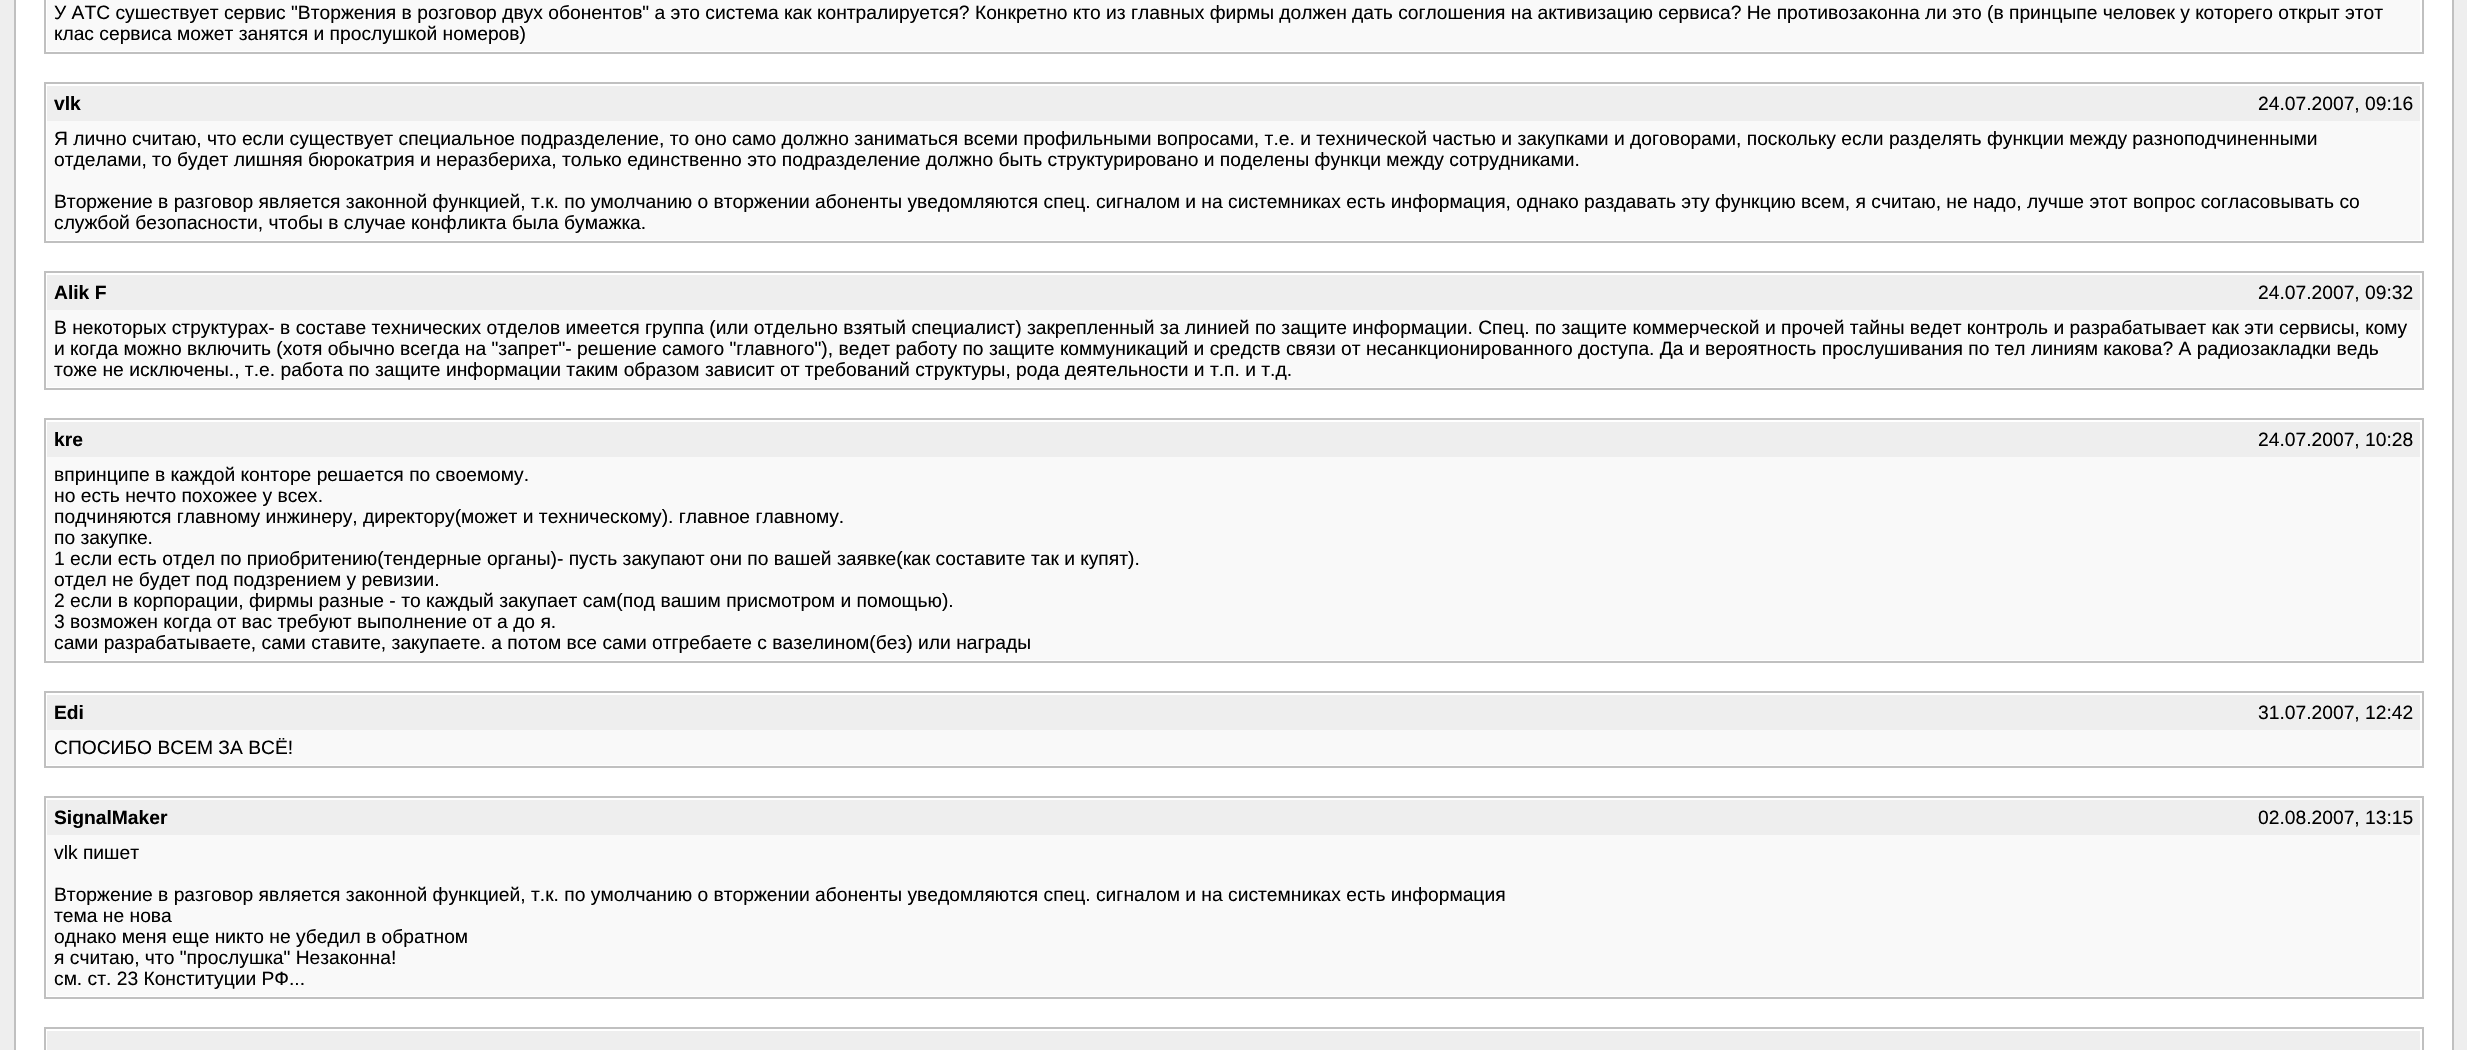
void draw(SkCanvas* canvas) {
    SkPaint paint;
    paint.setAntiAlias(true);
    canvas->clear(0xFFEEEEEE);
    paint.setColor(0xFFFFFFFF);
    canvas->drawRect(SkRect::MakeXYWH(15, -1, 2438, 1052), paint);
    paint.setStyle(SkPaint::kStroke_Style);
    paint.setStrokeWidth(2);
    paint.setColor(0xFFC0C0C0);
    canvas->drawRect(SkRect::MakeXYWH(15, -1, 2438, 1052), paint);
    canvas->drawRect(SkRect::MakeXYWH(45, -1, 2378, 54), paint);
    paint.setStyle(SkPaint::kFill_Style);
    paint.setColor(0xFFF9F9F9);
    canvas->drawRect(SkRect::MakeXYWH(47, 0, 2373, 51), paint);
    SkFont font1(fontMgr->matchFamilyStyle("Liberation Sans", SkFontStyle::Normal()), 19.25f);
    font1.setSubpixel(true);
    paint.setColor(0xFF000000);
    canvas->drawString("У АТС сушествует сервис \"Вторжения в розговор двух обонентов\" а это система как контралируется? Конкретно кто из главных фирмы должен дать соглошения на активизацию сервиса? Не противозаконна ли это (в принцыпе человек у которего открыт этот", 54, 19, font1, paint);
    canvas->drawString("клас сервиса может занятся и прослушкой номеров)", 54, 40, font1, paint);
    paint.setStyle(SkPaint::kStroke_Style);
    paint.setColor(0xFFC0C0C0);
    canvas->drawRect(SkRect::MakeXYWH(45, 83, 2378, 159), paint);
    paint.setStyle(SkPaint::kFill_Style);
    paint.setColor(0xFFEEEEEE);
    canvas->drawRect(SkRect::MakeXYWH(47, 86, 2373, 35), paint);
    SkFont font2(fontMgr->matchFamilyStyle("Liberation Sans", SkFontStyle::Bold()), 19.25f);
    font2.setSubpixel(true);
    paint.setColor(0xFF000000);
    canvas->drawString("vlk", 54, 110, font2, paint);
    canvas->drawString("24.07.2007, 09:16", 2258, 110, font1, paint);
    paint.setColor(0xFFF9F9F9);
    canvas->drawRect(SkRect::MakeXYWH(47, 121, 2373, 119), paint);
    paint.setColor(0xFF000000);
    canvas->drawString("Я лично считаю, что если существует специальное подразделение, то оно само должно заниматься всеми профильными вопросами, т.е. и технической частью и закупками и договорами, поскольку если разделять функции между разноподчиненными", 54, 145, font1, paint);
    canvas->drawString("отделами, то будет лишняя бюрокатрия и неразбериха, только единственно это подразделение должно быть структурировано и поделены функци между сотрудниками.", 54, 166, font1, paint);
    canvas->drawString("Вторжение в разговор является законной функцией, т.к. по умолчанию о вторжении абоненты уведомляются спец. сигналом и на системниках есть информация, однако раздавать эту функцию всем, я считаю, не надо, лучше этот вопрос согласовывать со", 54, 208, font1, paint);
    canvas->drawString("службой безопасности, чтобы в случае конфликта была бумажка.", 54, 229, font1, paint);
    paint.setStyle(SkPaint::kStroke_Style);
    paint.setColor(0xFFC0C0C0);
    canvas->drawRect(SkRect::MakeXYWH(45, 272, 2378, 117), paint);
    paint.setStyle(SkPaint::kFill_Style);
    paint.setColor(0xFFEEEEEE);
    canvas->drawRect(SkRect::MakeXYWH(47, 275, 2373, 35), paint);
    paint.setColor(0xFF000000);
    canvas->drawString("Alik F", 54, 299, font2, paint);
    canvas->drawString("24.07.2007, 09:32", 2258, 299, font1, paint);
    paint.setColor(0xFFF9F9F9);
    canvas->drawRect(SkRect::MakeXYWH(47, 310, 2373, 77), paint);
    paint.setColor(0xFF000000);
    canvas->drawString("В некоторых структурах- в составе технических отделов имеется группа (или отдельно взятый специалист) закрепленный за линией по защите информации. Спец. по защите коммерческой и прочей тайны ведет контроль и разрабатывает как эти сервисы, кому", 54, 334, font1, paint);
    canvas->drawString("и когда можно включить (хотя обычно всегда на \"запрет\"- решение самого \"главного\"), ведет работу по защите коммуникаций и средств связи от несанкционированного доступа. Да и вероятность прослушивания по тел линиям какова? А радиозакладки ведь", 54, 355, font1, paint);
    canvas->drawString("тоже не исключены., т.е. работа по защите информации таким образом зависит от требований структуры, рода деятельности и т.п. и т.д.", 54, 376, font1, paint);
    paint.setStyle(SkPaint::kStroke_Style);
    paint.setColor(0xFFC0C0C0);
    canvas->drawRect(SkRect::MakeXYWH(45, 419, 2378, 243), paint);
    paint.setStyle(SkPaint::kFill_Style);
    paint.setColor(0xFFEEEEEE);
    canvas->drawRect(SkRect::MakeXYWH(47, 422, 2373, 35), paint);
    paint.setColor(0xFF000000);
    canvas->drawString("kre", 54, 446, font2, paint);
    canvas->drawString("24.07.2007, 10:28", 2258, 446, font1, paint);
    paint.setColor(0xFFF9F9F9);
    canvas->drawRect(SkRect::MakeXYWH(47, 457, 2373, 203), paint);
    paint.setColor(0xFF000000);
    canvas->drawString("впринципе в каждой конторе решается по своемому.", 54, 481, font1, paint);
    canvas->drawString("но есть нечто похожее у всех.", 54, 502, font1, paint);
    canvas->drawString("подчиняются главному инжинеру, директору(может и техническому). главное главному.", 54, 523, font1, paint);
    canvas->drawString("по закупке.", 54, 544, font1, paint);
    canvas->drawString("1 если есть отдел по приобритению(тендерные органы)- пусть закупают они по вашей заявке(как составите так и купят).", 54, 565, font1, paint);
    canvas->drawString("отдел не будет под подзрением у ревизии.", 54, 586, font1, paint);
    canvas->drawString("2 если в корпорации, фирмы разные - то каждый закупает сам(под вашим присмотром и помощью).", 54, 607, font1, paint);
    canvas->drawString("3 возможен когда от вас требуют выполнение от а до я.", 54, 628, font1, paint);
    canvas->drawString("сами разрабатываете, сами ставите, закупаете. а потом все сами отгребаете с вазелином(без) или награды", 54, 649, font1, paint);
    paint.setStyle(SkPaint::kStroke_Style);
    paint.setColor(0xFFC0C0C0);
    canvas->drawRect(SkRect::MakeXYWH(45, 692, 2378, 75), paint);
    paint.setStyle(SkPaint::kFill_Style);
    paint.setColor(0xFFEEEEEE);
    canvas->drawRect(SkRect::MakeXYWH(47, 695, 2373, 35), paint);
    paint.setColor(0xFF000000);
    canvas->drawString("Edi", 54, 719, font2, paint);
    canvas->drawString("31.07.2007, 12:42", 2258, 719, font1, paint);
    paint.setColor(0xFFF9F9F9);
    canvas->drawRect(SkRect::MakeXYWH(47, 730, 2373, 35), paint);
    paint.setColor(0xFF000000);
    canvas->drawString("СПОСИБО ВСЕМ ЗА ВСЁ!", 54, 754, font1, paint);
    paint.setStyle(SkPaint::kStroke_Style);
    paint.setColor(0xFFC0C0C0);
    canvas->drawRect(SkRect::MakeXYWH(45, 797, 2378, 201), paint);
    paint.setStyle(SkPaint::kFill_Style);
    paint.setColor(0xFFEEEEEE);
    canvas->drawRect(SkRect::MakeXYWH(47, 800, 2373, 35), paint);
    paint.setColor(0xFF000000);
    canvas->drawString("SignalMaker", 54, 824, font2, paint);
    canvas->drawString("02.08.2007, 13:15", 2258, 824, font1, paint);
    paint.setColor(0xFFF9F9F9);
    canvas->drawRect(SkRect::MakeXYWH(47, 835, 2373, 161), paint);
    paint.setColor(0xFF000000);
    canvas->drawString("vlk пишет", 54, 859, font1, paint);
    canvas->drawString("Вторжение в разговор является законной функцией, т.к. по умолчанию о вторжении абоненты уведомляются спец. сигналом и на системниках есть информация", 54, 901, font1, paint);
    canvas->drawString("тема не нова", 54, 922, font1, paint);
    canvas->drawString("однако меня еще никто не убедил в обратном", 54, 943, font1, paint);
    canvas->drawString("я считаю, что \"прослушка\" Незаконна!", 54, 964, font1, paint);
    canvas->drawString("см. ст. 23 Конституции РФ...", 54, 985, font1, paint);
    paint.setStyle(SkPaint::kStroke_Style);
    paint.setColor(0xFFC0C0C0);
    canvas->drawRect(SkRect::MakeXYWH(45, 1028, 2378, 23), paint);
    paint.setStyle(SkPaint::kFill_Style);
    paint.setColor(0xFFEEEEEE);
    canvas->drawRect(SkRect::MakeXYWH(47, 1031, 2373, 19), paint);
}
